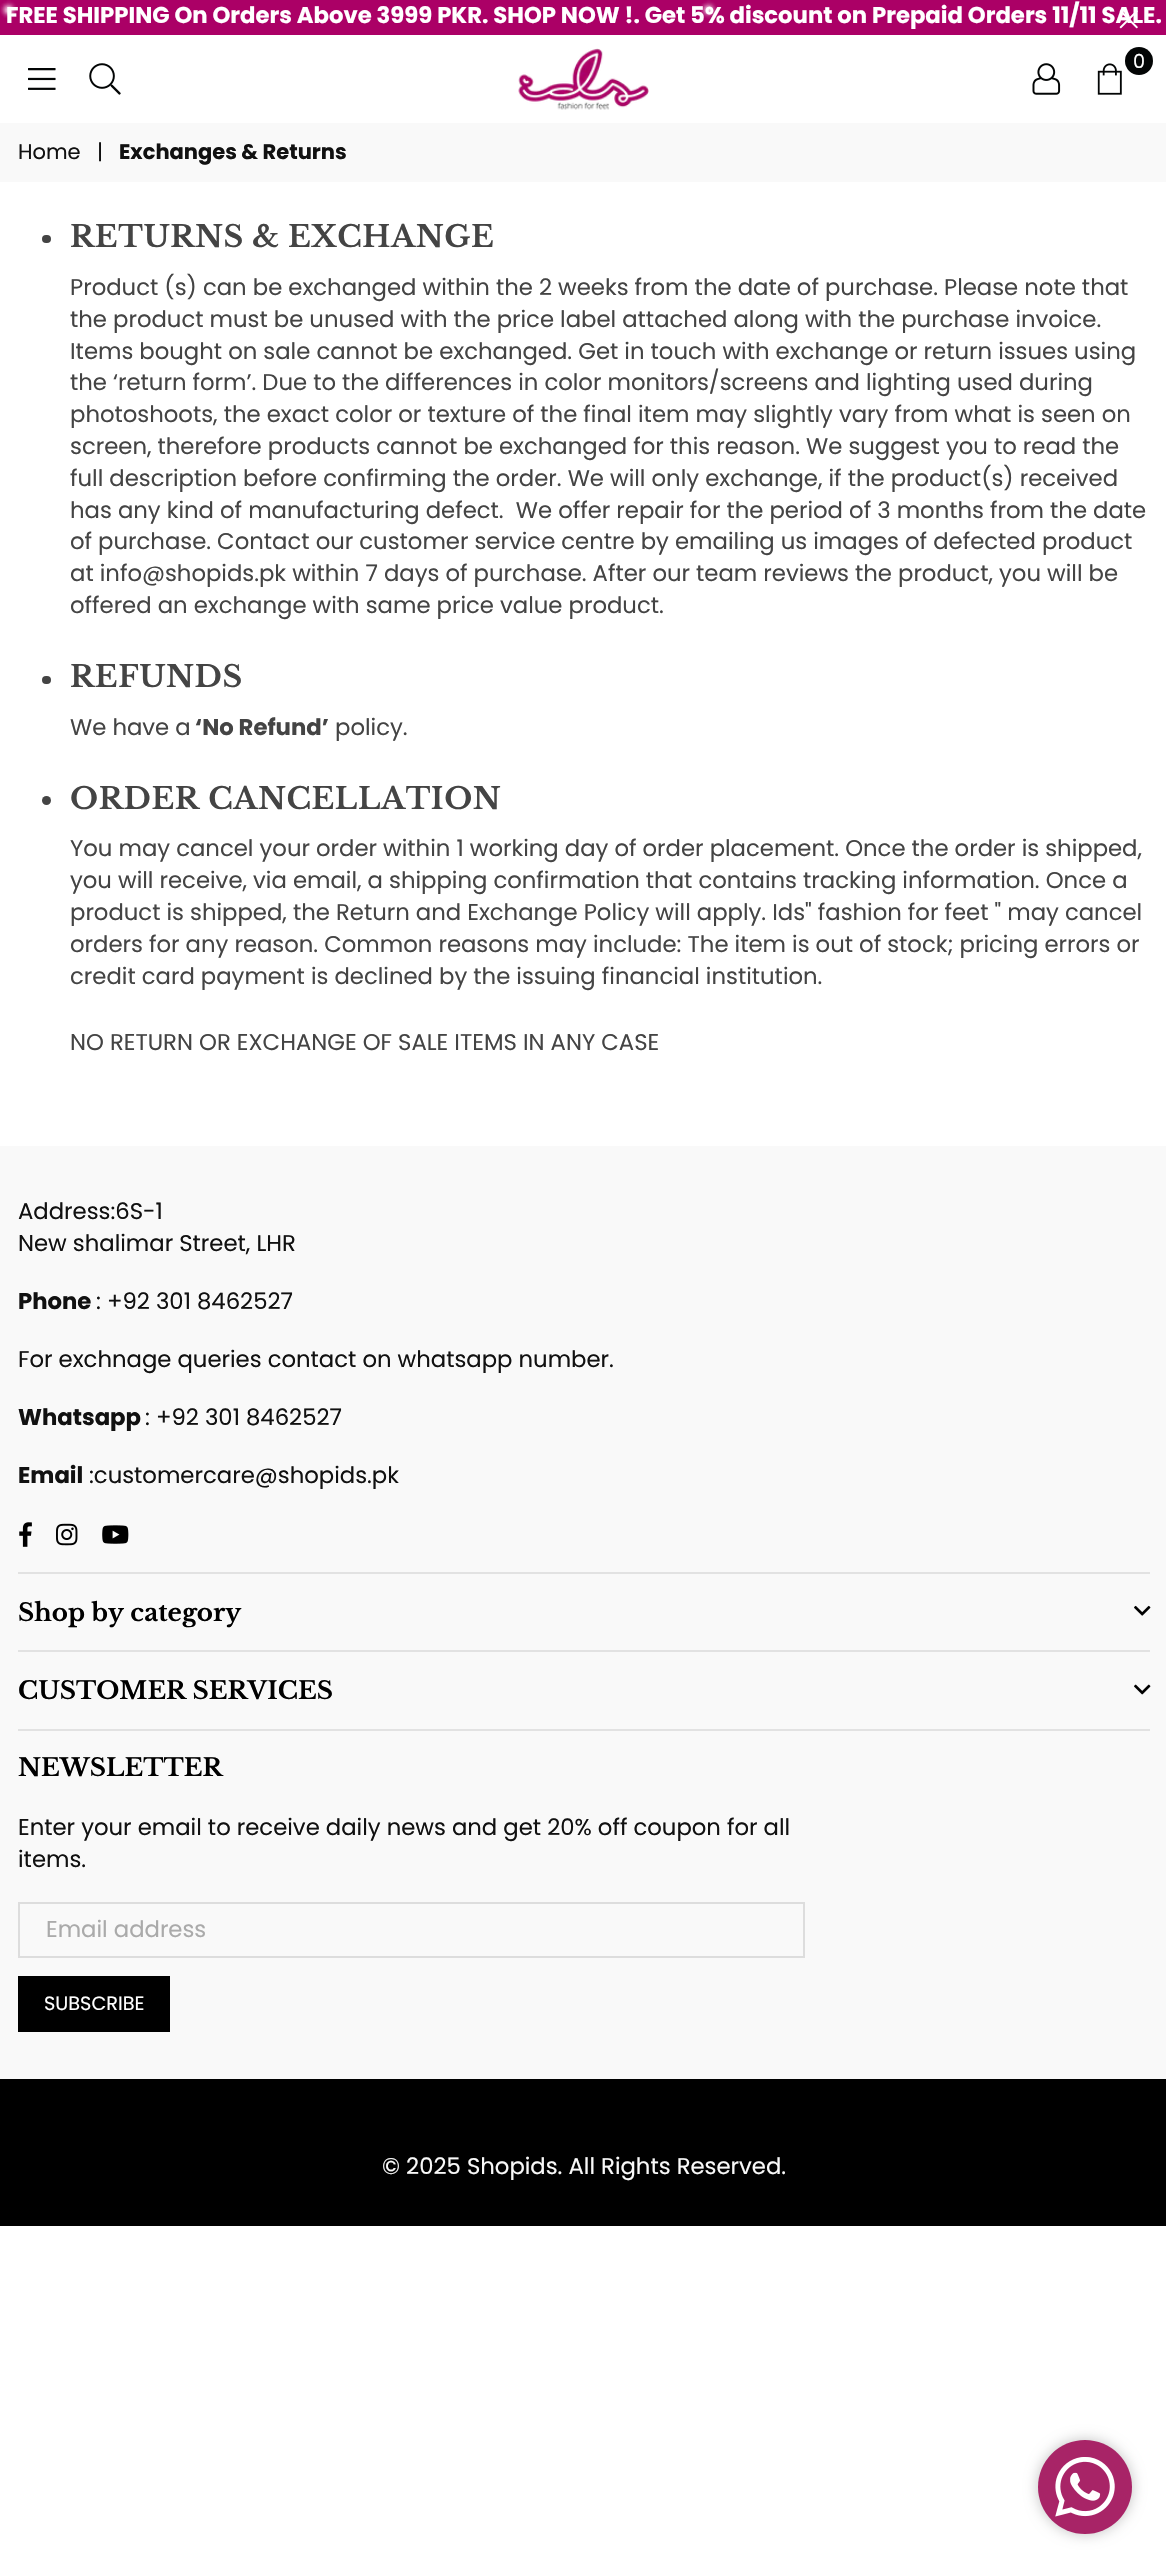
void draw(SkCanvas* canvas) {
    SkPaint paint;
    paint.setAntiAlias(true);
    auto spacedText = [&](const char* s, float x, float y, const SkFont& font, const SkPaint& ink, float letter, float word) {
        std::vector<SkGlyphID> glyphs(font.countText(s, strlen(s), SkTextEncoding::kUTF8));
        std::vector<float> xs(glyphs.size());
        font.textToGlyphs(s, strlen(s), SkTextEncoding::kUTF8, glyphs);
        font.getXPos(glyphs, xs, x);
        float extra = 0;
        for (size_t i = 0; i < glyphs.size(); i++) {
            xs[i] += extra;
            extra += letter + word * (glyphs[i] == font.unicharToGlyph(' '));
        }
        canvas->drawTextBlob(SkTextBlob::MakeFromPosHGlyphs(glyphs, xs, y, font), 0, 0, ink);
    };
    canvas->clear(0xFFFFFFFF);
    paint.setColor(0xFFAB0066);
    canvas->drawRect(SkRect::MakeXYWH(0, 0, 1166, 35), paint);
    SkFont font1(fontMgr->matchFamilyStyle("Poppins", SkFontStyle::Bold()), 22.75f);
    font1.setSubpixel(true);
    paint.setColor(0xFFFFFFFF);
    canvas->drawString("FREE SHIPPING On Orders Above 3999 PKR. SHOP NOW !. Get 5% discount on Prepaid Orders 11/11 SALE.", 6, 23, font1, paint);
    canvas->drawImageRect(SkImages::DeferredFromEncodedData(SkData::MakeFromFileName("img1.png")), SkRect::MakeXYWH(0, 0, 717, 19), SkSamplingOptions());
    canvas->drawImageRect(SkImages::DeferredFromEncodedData(SkData::MakeFromFileName("img2.png")), SkRect::MakeXYWH(1119, 10, 19, 19), SkSamplingOptions());
    canvas->drawImageRect(SkImages::DeferredFromEncodedData(SkData::MakeFromFileName("img3.png")), SkRect::MakeXYWH(518, 48, 131, 62), SkSamplingOptions());
    paint.setColor(0xFF030505);
    canvas->drawCircle(1139, 61, 14, paint);
    SkFont font2(fontMgr->matchFamilyStyle("Poppins", SkFontStyle::Normal()), 19.25f);
    font2.setSubpixel(true);
    paint.setColor(0xFFFFFFFF);
    canvas->drawString("0", 1133, 68, font2, paint);
    canvas->drawImageRect(SkImages::DeferredFromEncodedData(SkData::MakeFromFileName("img4.png")), SkRect::MakeXYWH(1097, 63, 25, 32), SkSamplingOptions());
    canvas->drawImageRect(SkImages::DeferredFromEncodedData(SkData::MakeFromFileName("img5.png")), SkRect::MakeXYWH(1032, 63, 29, 32), SkSamplingOptions());
    canvas->drawImageRect(SkImages::DeferredFromEncodedData(SkData::MakeFromFileName("img6.png")), SkRect::MakeXYWH(28, 68, 28, 22), SkSamplingOptions());
    canvas->drawImageRect(SkImages::DeferredFromEncodedData(SkData::MakeFromFileName("img7.png")), SkRect::MakeXYWH(89, 63, 32, 32), SkSamplingOptions());
    paint.setColor(0xFFF9F9F9);
    canvas->drawRect(SkRect::MakeXYWH(0, 123, 1166, 59), paint);
    SkFont font3(fontMgr->matchFamilyStyle("Poppins", SkFontStyle::Normal()), 21);
    font3.setSubpixel(true);
    paint.setColor(0xFF111111);
    canvas->drawString("Home", 18, 159, font3, paint);
    canvas->drawString("|", 97, 159, font3, paint);
    SkFont font4(fontMgr->matchFamilyStyle("Poppins", SkFontStyle::Bold()), 21);
    font4.setSubpixel(true);
    canvas->drawString("Exchanges & Returns", 119, 159, font4, paint);
    paint.setColor(0xFF444444);
    canvas->drawRoundRect(SkRect::MakeXYWH(42, 235, 9, 8), 4, 4, paint);
    SkFont font5(fontMgr->matchFamilyStyle("Libre Baskerville", SkFontStyle::Bold()), 29.75f);
    font5.setSubpixel(true);
    spacedText("RETURNS & EXCHANGE", 70, 247, font5, paint, 0.6f, 0);
    SkFont font6(fontMgr->matchFamilyStyle("Poppins", SkFontStyle::Normal()), 22.75f);
    font6.setSubpixel(true);
    canvas->drawString("Product (s) can be exchanged within the 2 weeks from the date of purchase. Please note that", 70, 295, font6, paint);
    canvas->drawString("the product must be unused with the price label attached along with the purchase invoice.", 70, 327, font6, paint);
    canvas->drawString("Items bought on sale cannot be exchanged. Get in touch with exchange or return issues using", 70, 359, font6, paint);
    canvas->drawString("the ‘return form’. Due to the differences in color monitors/screens and lighting used during", 70, 390, font6, paint);
    canvas->drawString("photoshoots, the exact color or texture of the final item may slightly vary from what is seen on", 70, 422, font6, paint);
    canvas->drawString("screen, therefore products cannot be exchanged for this reason. We suggest you to read the", 70, 454, font6, paint);
    canvas->drawString("full description before confirming the order. We will only exchange, if the product(s) received", 70, 486, font6, paint);
    canvas->drawString("has any kind of manufacturing defect.  We offer repair for the period of 3 months from the date", 70, 518, font6, paint);
    canvas->drawString("of purchase. Contact our customer service centre by emailing us images of defected product", 70, 549, font6, paint);
    canvas->drawString("at info@shopids.pk within 7 days of purchase. After our team reviews the product, you will be", 70, 581, font6, paint);
    canvas->drawString("offered an exchange with same price value product.", 70, 613, font6, paint);
    canvas->drawRoundRect(SkRect::MakeXYWH(42, 676, 9, 8), 4, 4, paint);
    spacedText("REFUNDS", 70, 687, font5, paint, 0.6f, 0);
    canvas->drawString("We have a", 70, 735, font6, paint);
    canvas->drawString("‘No Refund’", 195, 735, font1, paint);
    canvas->drawString("policy.", 335, 735, font6, paint);
    canvas->drawCircle(46.5f, 800.5f, 4.5f, paint);
    spacedText("ORDER CANCELLATION", 70, 809, font5, paint, 0.6f, 0);
    canvas->drawString("You may cancel your order within 1 working day of order placement. Once the order is shipped,", 70, 856, font6, paint);
    canvas->drawString("you will receive, via email, a shipping confirmation that contains tracking information. Once a", 70, 888, font6, paint);
    canvas->drawString("product is shipped, the Return and Exchange Policy will apply. Ids\" fashion for feet \" may cancel", 70, 920, font6, paint);
    canvas->drawString("orders for any reason. Common reasons may include: The item is out of stock; pricing errors or", 70, 952, font6, paint);
    canvas->drawString("credit card payment is declined by the issuing financial institution.", 70, 984, font6, paint);
    canvas->drawString("NO RETURN OR EXCHANGE OF SALE ITEMS IN ANY CASE", 70, 1050, font6, paint);
    paint.setColor(0xFFF9F9F9);
    canvas->drawRect(SkRect::MakeXYWH(0, 1146, 1166, 933), paint);
    paint.setColor(0xFF111111);
    canvas->drawString("Address:6S-1", 18, 1219, font6, paint);
    canvas->drawString("New shalimar Street, LHR", 18, 1251, font6, paint);
    canvas->drawString("Phone", 18, 1309, font1, paint);
    canvas->drawString(": +92 301 8462527", 96, 1309, font6, paint);
    canvas->drawString("For exchnage queries contact on whatsapp number.", 18, 1367, font6, paint);
    canvas->drawString("Whatsapp", 18, 1425, font1, paint);
    canvas->drawString(": +92 301 8462527", 145, 1425, font6, paint);
    canvas->drawString("Email", 18, 1483, font1, paint);
    canvas->drawString(":customercare@shopids.pk", 89, 1483, font6, paint);
    canvas->drawImageRect(SkImages::DeferredFromEncodedData(SkData::MakeFromFileName("img8.png")), SkRect::MakeXYWH(19, 1522, 13, 25), SkSamplingOptions());
    canvas->drawImageRect(SkImages::DeferredFromEncodedData(SkData::MakeFromFileName("img9.png")), SkRect::MakeXYWH(56, 1523, 22, 23), SkSamplingOptions());
    canvas->drawImageRect(SkImages::DeferredFromEncodedData(SkData::MakeFromFileName("img10.png")), SkRect::MakeXYWH(102, 1525, 27, 19), SkSamplingOptions());
    paint.setColor(0xFFE2E2E2);
    canvas->drawRect(SkRect::MakeXYWH(18, 1572, 1132, 2), paint);
    SkFont font7(fontMgr->matchFamilyStyle("Libre Baskerville", SkFontStyle::Bold()), 24.5f);
    font7.setSubpixel(true);
    paint.setColor(0xFF000000);
    canvas->drawString("Shop by category", 18, 1621, font7, paint);
    canvas->drawImageRect(SkImages::DeferredFromEncodedData(SkData::MakeFromFileName("img11.png")), SkRect::MakeXYWH(1134, 1605, 17, 11), SkSamplingOptions());
    paint.setColor(0xFFE2E2E2);
    canvas->drawRect(SkRect::MakeXYWH(18, 1650, 1132, 2), paint);
    paint.setColor(0xFF000000);
    canvas->drawString("CUSTOMER SERVICES", 18, 1699, font7, paint);
    canvas->drawImageRect(SkImages::DeferredFromEncodedData(SkData::MakeFromFileName("img12.png")), SkRect::MakeXYWH(1134, 1684, 17, 11), SkSamplingOptions());
    paint.setColor(0xFFE2E2E2);
    canvas->drawRect(SkRect::MakeXYWH(18, 1729, 1132, 2), paint);
    paint.setColor(0xFF000000);
    canvas->drawString("NEWSLETTER", 18, 1776, font7, paint);
    paint.setColor(0xFF111111);
    canvas->drawString("Enter your email to receive daily news and get 20% off coupon for all", 18, 1835, font6, paint);
    canvas->drawString("items.", 18, 1867, font6, paint);
    paint.setStyle(SkPaint::kStroke_Style);
    paint.setStrokeWidth(2);
    paint.setColor(0xFFDDDDDD);
    canvas->drawRect(SkRect::MakeXYWH(19, 1903, 785, 54), paint);
    paint.setStyle(SkPaint::kFill_Style);
    paint.setColor(0xFFAAAAAA);
    canvas->drawString("Email address", 46, 1937, font6, paint);
    paint.setColor(0xFF000000);
    canvas->drawRect(SkRect::MakeXYWH(18, 1976, 152, 56), paint);
    paint.setColor(0xFFFFFFFF);
    canvas->drawString("SUBSCRIBE", 44, 2010, font2, paint);
    paint.setColor(0xFF000000);
    canvas->drawRect(SkRect::MakeXYWH(0, 2079, 1166, 147), paint);
    paint.setColor(0xFFF9F9F9);
    canvas->drawString("© 2025 Shopids. All Rights Reserved.", 382, 2174, font6, paint);
    paint.setColor(0xFFC2C2C2);
    paint.setMaskFilter(SkMaskFilter::MakeBlur(kNormal_SkBlurStyle, 7));
    canvas->drawRoundRect(SkRect::MakeXYWH(1038, 2440, 94, 94), 47, 47, paint);
    paint.setMaskFilter(nullptr);
    paint.setColor(0xFFA82467);
    canvas->drawCircle(1085, 2487, 47, paint);
    canvas->drawImageRect(SkImages::DeferredFromEncodedData(SkData::MakeFromFileName("img13.png")), SkRect::MakeXYWH(1055, 2457, 60, 60), SkSamplingOptions());
}
